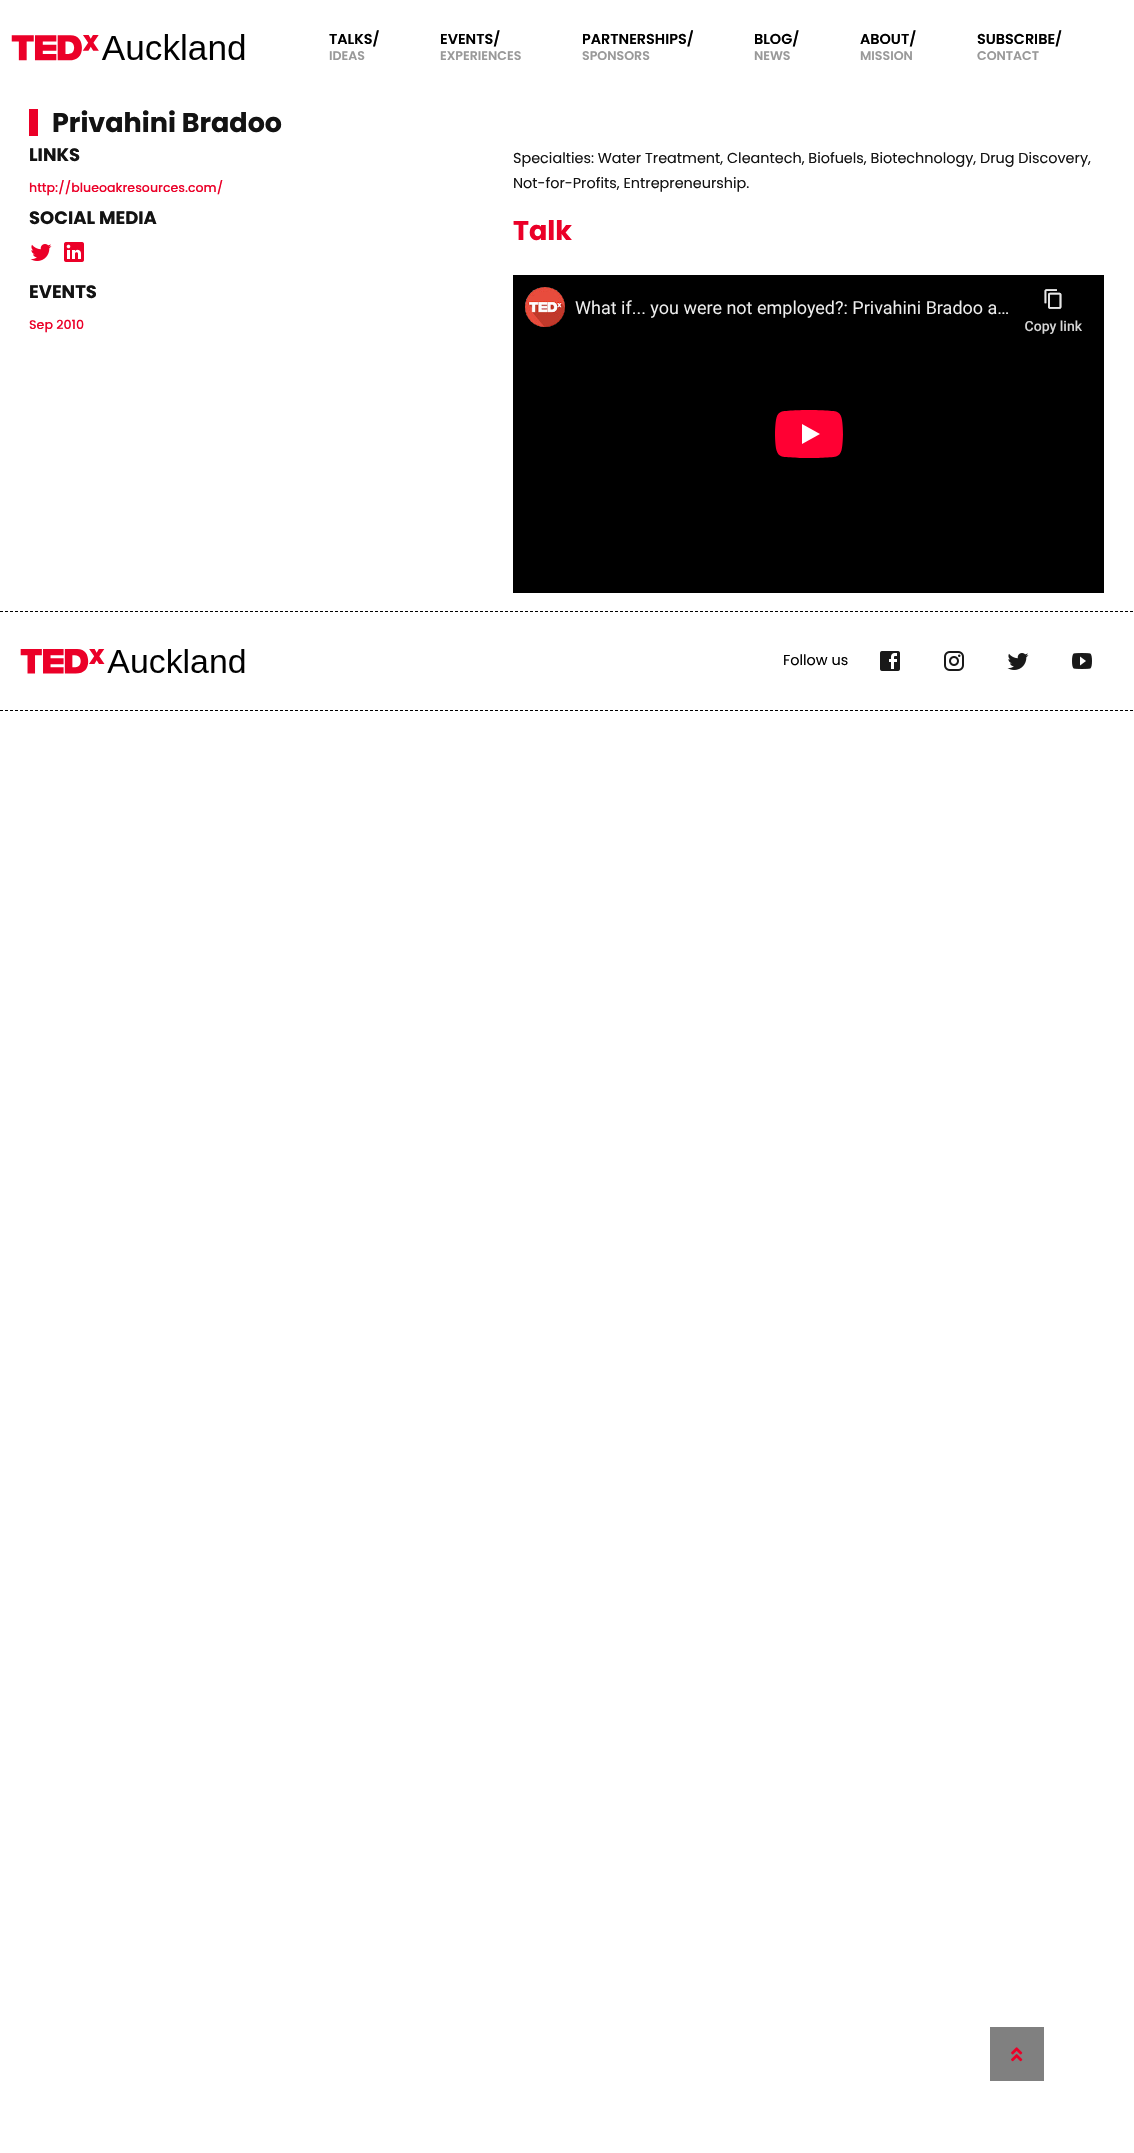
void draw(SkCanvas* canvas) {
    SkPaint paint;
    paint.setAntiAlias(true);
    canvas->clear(0xFFFFFFFF);
    canvas->drawImageRect(SkImages::DeferredFromEncodedData(SkData::MakeFromFileName("img1.png")), SkRect::MakeXYWH(11, 34, 234, 27), SkSamplingOptions());
    SkFont font1(fontMgr->matchFamilyStyle("Poppins", SkFontStyle(600, SkFontStyle::kNormal_Width, SkFontStyle::kUpright_Slant)), 14.4f);
    font1.setSubpixel(true);
    paint.setColor(0xFF000000);
    canvas->drawString("TALKS/", 329, 44, font1, paint);
    SkFont font2(fontMgr->matchFamilyStyle("Poppins", SkFontStyle(600, SkFontStyle::kNormal_Width, SkFontStyle::kUpright_Slant)), 12.6f);
    font2.setSubpixel(true);
    paint.setColor(0xFF999999);
    canvas->drawString("IDEAS", 329, 60, font2, paint);
    paint.setColor(0xFF000000);
    canvas->drawString("EVENTS/", 440, 44, font1, paint);
    paint.setColor(0xFF999999);
    canvas->drawString("EXPERIENCES", 440, 60, font2, paint);
    paint.setColor(0xFF000000);
    canvas->drawString("PARTNERSHIPS/", 582, 44, font1, paint);
    paint.setColor(0xFF999999);
    canvas->drawString("SPONSORS", 582, 60, font2, paint);
    paint.setColor(0xFF000000);
    canvas->drawString("BLOG/", 754, 44, font1, paint);
    paint.setColor(0xFF999999);
    canvas->drawString("NEWS", 754, 60, font2, paint);
    paint.setColor(0xFF000000);
    canvas->drawString("ABOUT/", 860, 44, font1, paint);
    paint.setColor(0xFF999999);
    canvas->drawString("MISSION", 860, 60, font2, paint);
    paint.setColor(0xFF000000);
    canvas->drawString("SUBSCRIBE/", 977, 44, font1, paint);
    paint.setColor(0xFF999999);
    canvas->drawString("CONTACT", 977, 60, font2, paint);
    paint.setColor(0xFFEB0028);
    canvas->drawRect(SkRect::MakeXYWH(29, 109, 9, 27), paint);
    SkFont font3(fontMgr->matchFamilyStyle("Poppins", SkFontStyle::Bold()), 27);
    font3.setSubpixel(true);
    paint.setColor(0xFF131313);
    canvas->drawString("Privahini Bradoo", 52, 132, font3, paint);
    SkFont font4(fontMgr->matchFamilyStyle("Poppins", SkFontStyle::Bold()), 18);
    font4.setSubpixel(true);
    canvas->drawString("LINKS", 29, 161, font4, paint);
    SkFont font5(fontMgr->matchFamilyStyle("Poppins", SkFontStyle(500, SkFontStyle::kNormal_Width, SkFontStyle::kUpright_Slant)), 12.6f);
    font5.setSubpixel(true);
    paint.setColor(0xFFEB0028);
    canvas->drawString("http://blueoakresources.com/", 29, 192, font5, paint);
    paint.setColor(0xFF131313);
    canvas->drawString("SOCIAL MEDIA", 29, 224, font4, paint);
    canvas->drawImageRect(SkImages::DeferredFromEncodedData(SkData::MakeFromFileName("img2.png")), SkRect::MakeXYWH(30, 244, 22, 17), SkSamplingOptions());
    canvas->drawImageRect(SkImages::DeferredFromEncodedData(SkData::MakeFromFileName("img3.png")), SkRect::MakeXYWH(64, 242, 20, 20), SkSamplingOptions());
    canvas->drawString("EVENTS", 29, 298, font4, paint);
    paint.setColor(0xFFEB0028);
    canvas->drawString("Sep 2010", 29, 329, font5, paint);
    SkFont font6(fontMgr->matchFamilyStyle("Poppins", SkFontStyle::Normal()), 14.4f);
    font6.setSubpixel(true);
    paint.setColor(0xFF131313);
    canvas->drawString("Specialties: Water Treatment, Cleantech, Biofuels, Biotechnology, Drug Discovery,", 513, 163, font6, paint);
    canvas->drawString("Not-for-Profits, Entrepreneurship.", 513, 188, font6, paint);
    paint.setColor(0xFFEB0028);
    canvas->drawString("Talk", 513, 240, font3, paint);
    canvas->drawImageRect(SkImages::DeferredFromEncodedData(SkData::MakeFromFileName("img4.png")), SkRect::MakeXYWH(513, 275, 591, 318), SkSamplingOptions());
    paint.setStyle(SkPaint::kStroke_Style);
    paint.setStrokeWidth(1);
    paint.setColor(0xFF000000);
    paint.setPathEffect(SkDashPathEffect::Make({{3, 2}}, 0));
    canvas->drawPath(SkPathBuilder().moveTo(0, 611.5f).lineTo(1134, 611.5f).detach(), paint);
    paint.setPathEffect(nullptr);
    paint.setPathEffect(SkDashPathEffect::Make({{3, 2}}, 0));
    canvas->drawPath(SkPathBuilder().moveTo(0, 710.5f).lineTo(1134, 710.5f).detach(), paint);
    paint.setPathEffect(nullptr);
    canvas->drawImageRect(SkImages::DeferredFromEncodedData(SkData::MakeFromFileName("img5.png")), SkRect::MakeXYWH(20, 649, 225, 25), SkSamplingOptions());
    paint.setStyle(SkPaint::kFill_Style);
    canvas->drawString("Follow us", 783, 665, font6, paint);
    canvas->drawImageRect(SkImages::DeferredFromEncodedData(SkData::MakeFromFileName("img6.png")), SkRect::MakeXYWH(880, 651, 20, 20), SkSamplingOptions());
    canvas->drawImageRect(SkImages::DeferredFromEncodedData(SkData::MakeFromFileName("img7.png")), SkRect::MakeXYWH(944, 651, 20, 20), SkSamplingOptions());
    canvas->drawImageRect(SkImages::DeferredFromEncodedData(SkData::MakeFromFileName("img8.png")), SkRect::MakeXYWH(1007, 653, 22, 17), SkSamplingOptions());
    canvas->drawImageRect(SkImages::DeferredFromEncodedData(SkData::MakeFromFileName("img9.png")), SkRect::MakeXYWH(1072, 653, 20, 16), SkSamplingOptions());
    paint.setColor(0xFF808080);
    canvas->drawRect(SkRect::MakeXYWH(990, 2027, 54, 54), paint);
    canvas->drawImageRect(SkImages::DeferredFromEncodedData(SkData::MakeFromFileName("img10.png")), SkRect::MakeXYWH(1011, 2047, 12, 15), SkSamplingOptions());
}
